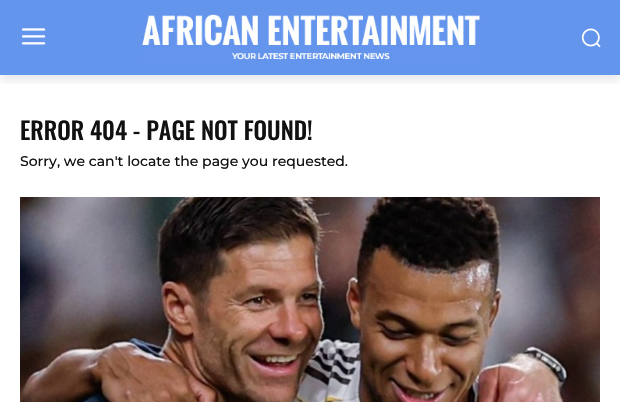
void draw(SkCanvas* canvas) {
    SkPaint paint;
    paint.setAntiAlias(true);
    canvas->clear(0xFFFFFFFF);
    paint.setColor(0xFF6495ED);
    canvas->drawRect(SkRect::MakeXYWH(0, 0, 620, 75), paint);
    canvas->drawImageRect(SkImages::DeferredFromEncodedData(SkData::MakeFromFileName("img1.png")), SkRect::MakeXYWH(22, 28, 24, 17), SkSamplingOptions());
    canvas->drawImageRect(SkImages::DeferredFromEncodedData(SkData::MakeFromFileName("img2.png")), SkRect::MakeXYWH(142, 12, 339, 50), SkSamplingOptions());
    canvas->drawImageRect(SkImages::DeferredFromEncodedData(SkData::MakeFromFileName("img3.png")), SkRect::MakeXYWH(581, 28, 20, 20), SkSamplingOptions());
    canvas->save();
    canvas->clipRect(SkRect::MakeXYWH(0, 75, 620, 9));
    paint.setColor(0x14000000);
    paint.setMaskFilter(SkMaskFilter::MakeBlur(kNormal_SkBlurStyle, 4));
    canvas->drawRect(SkRect::MakeXYWH(0, 6, 620, 75), paint);
    paint.setMaskFilter(nullptr);
    canvas->restore();
    SkFont font1(fontMgr->matchFamilyStyle("Oswald", SkFontStyle(500, SkFontStyle::kNormal_Width, SkFontStyle::kUpright_Slant)), 24);
    font1.setSubpixel(true);
    paint.setColor(0xFF111111);
    canvas->drawString("ERROR 404 - PAGE NOT FOUND!", 20, 140, font1, paint);
    SkFont font2(fontMgr->matchFamilyStyle("Montserrat", SkFontStyle(500, SkFontStyle::kNormal_Width, SkFontStyle::kUpright_Slant)), 14);
    font2.setSubpixel(true);
    canvas->drawString("Sorry, we can't locate the page you requested.", 20, 166, font2, paint);
    canvas->drawImageRect(SkImages::DeferredFromEncodedData(SkData::MakeFromFileName("img4.png")), SkRect::MakeXYWH(20, 197, 580, 205), SkSamplingOptions());
}
